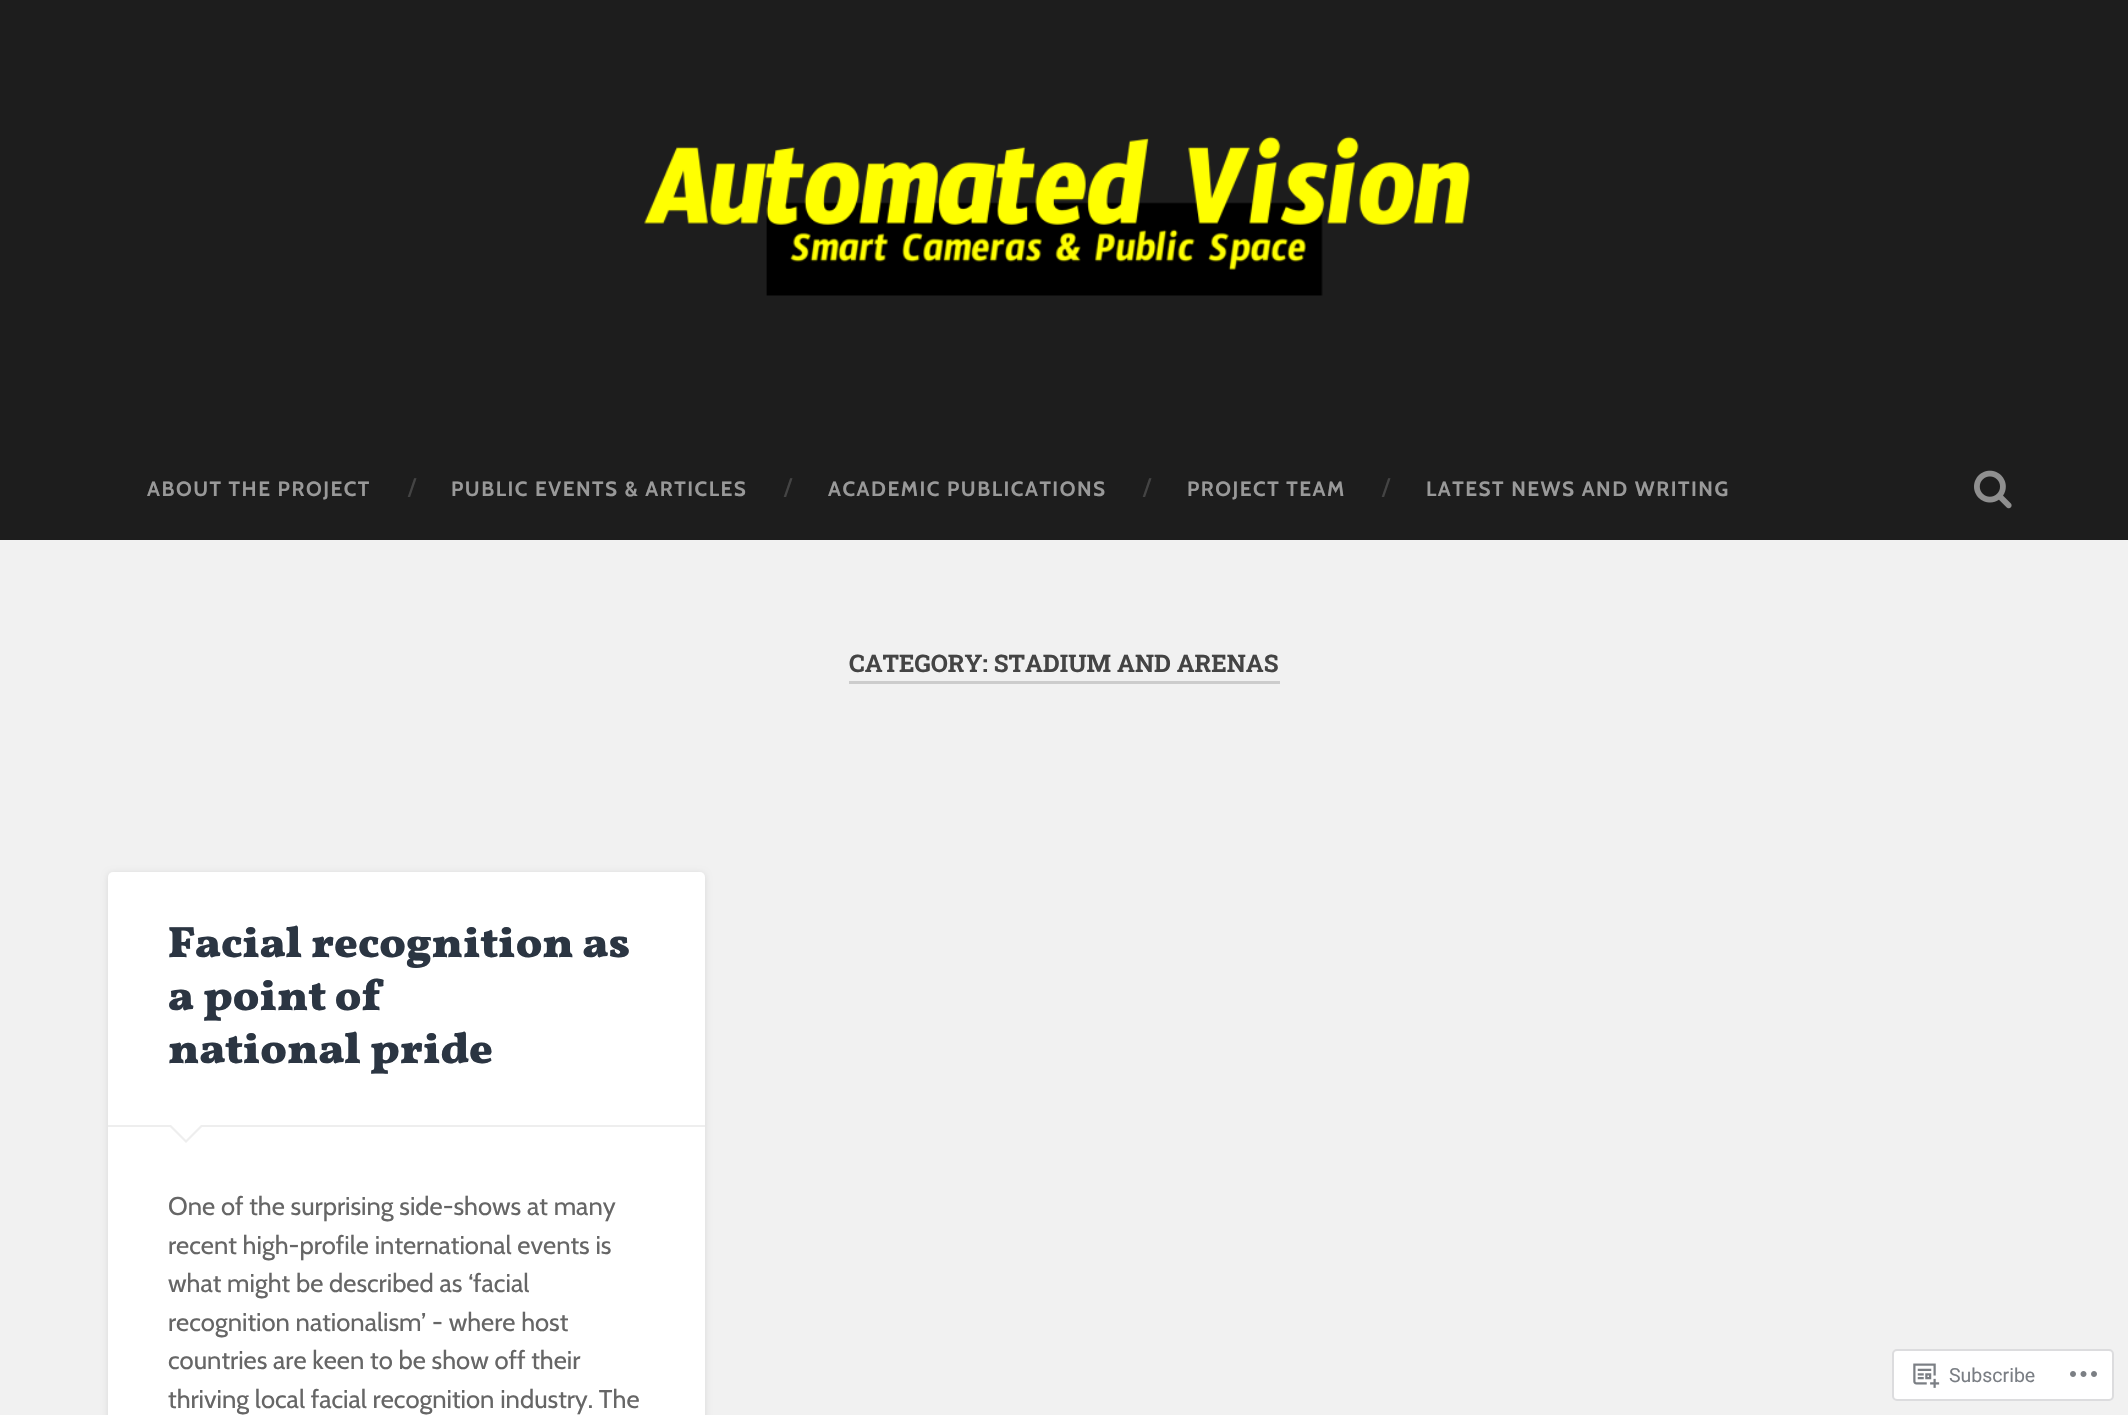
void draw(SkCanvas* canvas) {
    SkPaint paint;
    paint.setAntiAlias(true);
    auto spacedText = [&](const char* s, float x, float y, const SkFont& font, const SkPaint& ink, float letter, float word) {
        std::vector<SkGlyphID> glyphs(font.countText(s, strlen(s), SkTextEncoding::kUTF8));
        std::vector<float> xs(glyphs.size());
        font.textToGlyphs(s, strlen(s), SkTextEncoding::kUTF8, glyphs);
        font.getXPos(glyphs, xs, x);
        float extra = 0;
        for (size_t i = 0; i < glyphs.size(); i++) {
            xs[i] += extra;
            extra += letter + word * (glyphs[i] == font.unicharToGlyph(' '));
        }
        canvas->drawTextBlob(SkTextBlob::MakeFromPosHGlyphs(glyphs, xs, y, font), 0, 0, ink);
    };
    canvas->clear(0xFFF1F1F1);
    paint.setColor(0xFF1D1D1D);
    canvas->drawRect(SkRect::MakeXYWH(0, 0, 2128, 540), paint);
    canvas->drawImageRect(SkImages::DeferredFromEncodedData(SkData::MakeFromFileName("img1.png")), SkRect::MakeXYWH(644, 136, 826, 160), SkSamplingOptions());
    SkFont font1(fontMgr->matchFamilyStyle("Cabin", SkFontStyle::Bold()), 20.7f);
    font1.setSubpixel(true);
    paint.setColor(0xFF999999);
    spacedText("ABOUT THE PROJECT", 147, 496, font1, paint, 1.5f, 0);
    SkFont font2(fontMgr->matchFamilyStyle("Cabin", SkFontStyle::Normal()), 24);
    font2.setSubpixel(true);
    paint.setColor(0xFF444444);
    canvas->drawString("/", 408, 495, font2, paint);
    paint.setColor(0xFF999999);
    spacedText("PUBLIC EVENTS & ARTICLES", 451, 496, font1, paint, 1.5f, 0);
    paint.setColor(0xFF444444);
    canvas->drawString("/", 784, 495, font2, paint);
    paint.setColor(0xFF999999);
    spacedText("ACADEMIC PUBLICATIONS", 828, 496, font1, paint, 1.5f, 0);
    paint.setColor(0xFF444444);
    canvas->drawString("/", 1143, 495, font2, paint);
    paint.setColor(0xFF999999);
    spacedText("PROJECT TEAM", 1187, 496, font1, paint, 1.5f, 0);
    paint.setColor(0xFF444444);
    canvas->drawString("/", 1382, 495, font2, paint);
    paint.setColor(0xFF999999);
    spacedText("LATEST NEWS AND WRITING", 1426, 496, font1, paint, 1.5f, 0);
    canvas->drawImageRect(SkImages::DeferredFromEncodedData(SkData::MakeFromFileName("img2.png")), SkRect::MakeXYWH(1974, 470, 38, 39), SkSamplingOptions());
    paint.setColor(0xFFCCCCCC);
    canvas->drawRect(SkRect::MakeXYWH(849, 681, 431, 3), paint);
    SkFont font3(fontMgr->matchFamilyStyle("Roboto Slab", SkFontStyle::Bold()), 24.25f);
    font3.setSubpixel(true);
    paint.setColor(0xFF444444);
    canvas->drawString("CATEGORY: STADIUM AND ARENAS", 849, 672, font3, paint);
    paint.setColor(0x1A000000);
    paint.setMaskFilter(SkMaskFilter::MakeBlur(kNormal_SkBlurStyle, 3));
    canvas->drawRoundRect(SkRect::MakeXYWH(108, 873, 597, 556), 5, 5, paint);
    paint.setMaskFilter(nullptr);
    paint.setColor(0xFFFFFFFF);
    canvas->drawRoundRect(SkRect::MakeXYWH(108, 872, 597, 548), 5, 5, paint);
    paint.setColor(0xFFEEEEEE);
    canvas->drawRect(SkRect::MakeXYWH(108, 1125, 597, 2), paint);
    SkFont font4(fontMgr->matchFamilyStyle("Vollkorn", SkFontStyle(900, SkFontStyle::kNormal_Width, SkFontStyle::kUpright_Slant)), 43.9f);
    font4.setSubpixel(true);
    paint.setColor(0xFF2B3542);
    canvas->drawString("Facial recognition as", 168, 957, font4, paint);
    canvas->drawString("a point of", 168, 1010, font4, paint);
    canvas->drawString("national pride", 168, 1063, font4, paint);
    paint.setColor(0xFFEEEEEE);
    canvas->drawPath(SkPathBuilder().moveTo(168, 1125).lineTo(204, 1125).lineTo(186, 1143).close().detach(), paint);
    paint.setColor(0xFFFFFFFF);
    canvas->drawPath(SkPathBuilder().moveTo(169.5f, 1123.5f).lineTo(202.5f, 1123.5f).lineTo(186, 1140).close().detach(), paint);
    SkFont font5(fontMgr->matchFamilyStyle("Cabin", SkFontStyle::Normal()), 25.6f);
    font5.setSubpixel(true);
    paint.setColor(0xFF666666);
    canvas->drawString("One of the surprising side-shows at many", 168, 1215, font5, paint);
    canvas->drawString("recent high-profile international events is", 168, 1254, font5, paint);
    canvas->drawString("what might be described as ‘facial", 168, 1292, font5, paint);
    canvas->drawString("recognition nationalism’ - where host", 168, 1331, font5, paint);
    canvas->drawString("countries are keen to be show off their", 168, 1369, font5, paint);
    canvas->drawString("thriving local facial recognition industry. The", 168, 1408, font5, paint);
    paint.setColor(0xFFFFFFFF);
    canvas->drawRoundRect(SkRect::MakeXYWH(1893, 1350, 220, 50), 4, 4, paint);
    paint.setStyle(SkPaint::kStroke_Style);
    paint.setStrokeWidth(2);
    paint.setColor(0xFFDCDCDE);
    canvas->drawRoundRect(SkRect::MakeXYWH(1893, 1350, 220, 50), 4, 4, paint);
    canvas->drawImageRect(SkImages::DeferredFromEncodedData(SkData::MakeFromFileName("img3.png")), SkRect::MakeXYWH(1913, 1363, 27, 25), SkSamplingOptions());
    SkFont font6(fontMgr->matchFamilyStyle("Roboto", SkFontStyle::Normal()), 19.5f);
    font6.setSubpixel(true);
    paint.setStyle(SkPaint::kFill_Style);
    paint.setColor(0xFF7A7E84);
    canvas->drawString("Subscribe", 1949, 1382, font6, paint);
    canvas->drawImageRect(SkImages::DeferredFromEncodedData(SkData::MakeFromFileName("img4.png")), SkRect::MakeXYWH(2070, 1371, 27, 6), SkSamplingOptions());
}
